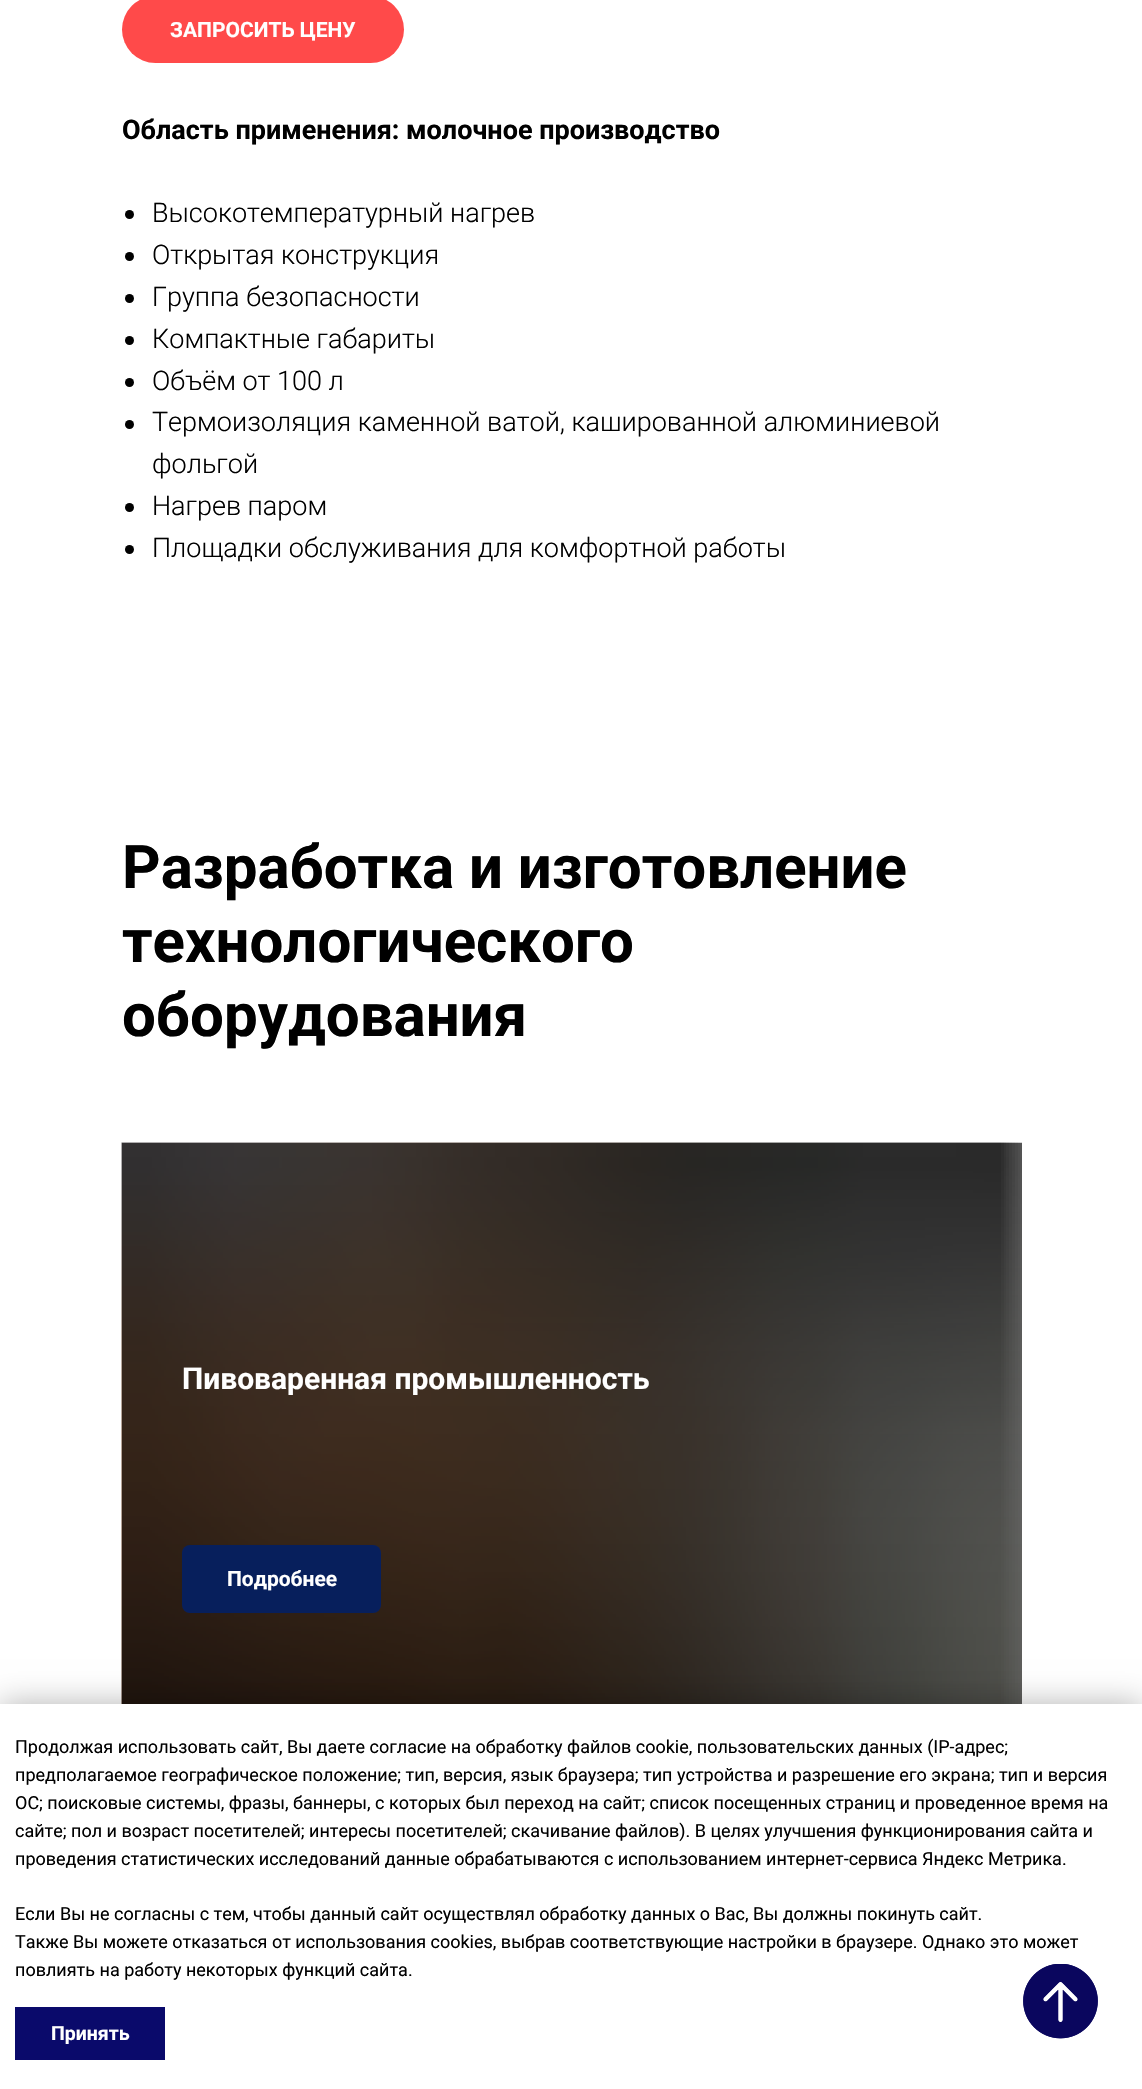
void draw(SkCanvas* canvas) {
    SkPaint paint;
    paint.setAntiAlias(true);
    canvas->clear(0xFFFFFFFF);
    paint.setColor(0xFFFF4A4A);
    canvas->drawRoundRect(SkRect::MakeXYWH(122, -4, 282, 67), 33.5f, 33.5f, paint);
    SkFont font1(fontMgr->matchFamilyStyle("Roboto", SkFontStyle::Bold()), 21);
    font1.setSubpixel(true);
    paint.setColor(0xFFFFFFFF);
    canvas->drawString("ЗАПРОСИТЬ ЦЕНУ", 170, 37, font1, paint);
    SkFont font2(fontMgr->matchFamilyStyle("Roboto", SkFontStyle::Bold()), 27);
    font2.setSubpixel(true);
    paint.setColor(0xFF000000);
    canvas->drawString("Область применения: молочное производство", 122, 139, font2, paint);
    canvas->drawCircle(129.5f, 214.5f, 4.5f, paint);
    SkFont font3(fontMgr->matchFamilyStyle("Roboto", SkFontStyle(300, SkFontStyle::kNormal_Width, SkFontStyle::kUpright_Slant)), 27);
    font3.setSubpixel(true);
    canvas->drawString("Высокотемпературный нагрев", 152, 222, font3, paint);
    canvas->drawCircle(129.5f, 256.5f, 4.5f, paint);
    canvas->drawString("Открытая конструкция", 152, 264, font3, paint);
    canvas->drawCircle(129.5f, 298.5f, 4.5f, paint);
    canvas->drawString("Группа безопасности", 152, 306, font3, paint);
    canvas->drawCircle(129.5f, 340.5f, 4.5f, paint);
    canvas->drawString("Компактные габариты", 152, 348, font3, paint);
    canvas->drawCircle(129.5f, 382.5f, 4.5f, paint);
    canvas->drawString("Объём от 100 л", 152, 390, font3, paint);
    canvas->drawCircle(129.5f, 424.5f, 4.5f, paint);
    canvas->drawString("Термоизоляция каменной ватой, кашированной алюминиевой", 152, 431, font3, paint);
    canvas->drawString("фольгой", 152, 473, font3, paint);
    canvas->drawCircle(129.5f, 507.5f, 4.5f, paint);
    canvas->drawString("Нагрев паром", 152, 515, font3, paint);
    canvas->drawCircle(129.5f, 549.5f, 4.5f, paint);
    canvas->drawString("Площадки обслуживания для комфортной работы", 152, 557, font3, paint);
    SkFont font4(fontMgr->matchFamilyStyle("Roboto", SkFontStyle::Bold()), 60);
    font4.setSubpixel(true);
    canvas->drawString("Разработка и изготовление", 122, 888, font4, paint);
    canvas->drawString("технологического", 122, 962, font4, paint);
    canvas->drawString("оборудования", 122, 1036, font4, paint);
    canvas->drawImageRect(SkImages::DeferredFromEncodedData(SkData::MakeFromFileName("img1.png")), SkRect::MakeXYWH(121, 1142, 901, 562), SkSamplingOptions());
    {
        const SkColor colors[] = {0x80000000, 0x99000000};
        const float stops[] = {0, 1};
        const SkPoint ends[] = {{572, 1143}, {572, 1835}};
        paint.setShader(SkGradientShader::MakeLinear(ends, colors, stops, 2, SkTileMode::kClamp));
        paint.setAlpha(255);
    }
    canvas->drawRect(SkRect::MakeXYWH(122, 1143, 900, 561), paint);
    SkFont font5(fontMgr->matchFamilyStyle("Roboto", SkFontStyle::Bold()), 30);
    font5.setSubpixel(true);
    paint.setShader(nullptr);
    paint.setColor(0xFFFFFFFF);
    canvas->drawString("Пивоваренная промышленность", 182, 1389, font5, paint);
    paint.setColor(0xFF071F5C);
    canvas->drawRoundRect(SkRect::MakeXYWH(182, 1545, 199, 68), 8, 8, paint);
    paint.setColor(0xFFFFFFFF);
    canvas->drawString("Подробнее", 227, 1586, font1, paint);
    paint.setColor(0x4D000000);
    paint.setMaskFilter(SkMaskFilter::MakeBlur(kNormal_SkBlurStyle, 15));
    canvas->drawRect(SkRect::MakeXYWH(0, 1704, 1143, 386), paint);
    paint.setMaskFilter(nullptr);
    paint.setColor(0xFFFFFFFF);
    canvas->drawRect(SkRect::MakeXYWH(0, 1704, 1142, 385), paint);
    SkFont font6(fontMgr->matchFamilyStyle("Roboto", SkFontStyle::Normal()), 18);
    font6.setSubpixel(true);
    paint.setColor(0xFF000000);
    canvas->drawString("Продолжая использовать сайт, Вы даете согласие на обработку файлов cookie, пользовательских данных (IP-адрес;", 15, 1753, font6, paint);
    canvas->drawString("предполагаемое географическое положение; тип, версия, язык браузера; тип устройства и разрешение его экрана; тип и версия", 15, 1781, font6, paint);
    canvas->drawString("ОС; поисковые системы, фразы, баннеры, с которых был переход на сайт; список посещенных страниц и проведенное время на", 15, 1809, font6, paint);
    canvas->drawString("сайте; пол и возраст посетителей; интересы посетителей; скачивание файлов). В целях улучшения функционирования сайта и", 15, 1837, font6, paint);
    canvas->drawString("проведения статистических исследований данные обрабатываются с использованием интернет-сервиса Яндекс Метрика.", 15, 1865, font6, paint);
    canvas->drawString("Если Вы не согласны с тем, чтобы данный сайт осуществлял обработку данных о Вас, Вы должны покинуть сайт.", 15, 1920, font6, paint);
    canvas->drawString("Также Вы можете отказаться от использования cookies, выбрав соответствующие настройки в браузере. Однако это может", 15, 1948, font6, paint);
    canvas->drawString("повлиять на работу некоторых функций сайта.", 15, 1976, font6, paint);
    paint.setColor(0xFF0A0A6B);
    canvas->drawRect(SkRect::MakeXYWH(15, 2007, 150, 53), paint);
    SkFont font7(fontMgr->matchFamilyStyle("Roboto", SkFontStyle::Bold()), 19.5f);
    font7.setSubpixel(true);
    paint.setColor(0xFFFFFFFF);
    canvas->drawString("Принять", 51, 2040, font7, paint);
    canvas->drawImageRect(SkImages::DeferredFromEncodedData(SkData::MakeFromFileName("img2.png")), SkRect::MakeXYWH(1023, 1964, 75, 75), SkSamplingOptions());
    canvas->drawImageRect(SkImages::DeferredFromEncodedData(SkData::MakeFromFileName("img3.png")), SkRect::MakeXYWH(1023, 1964, 75, 75), SkSamplingOptions());
}
